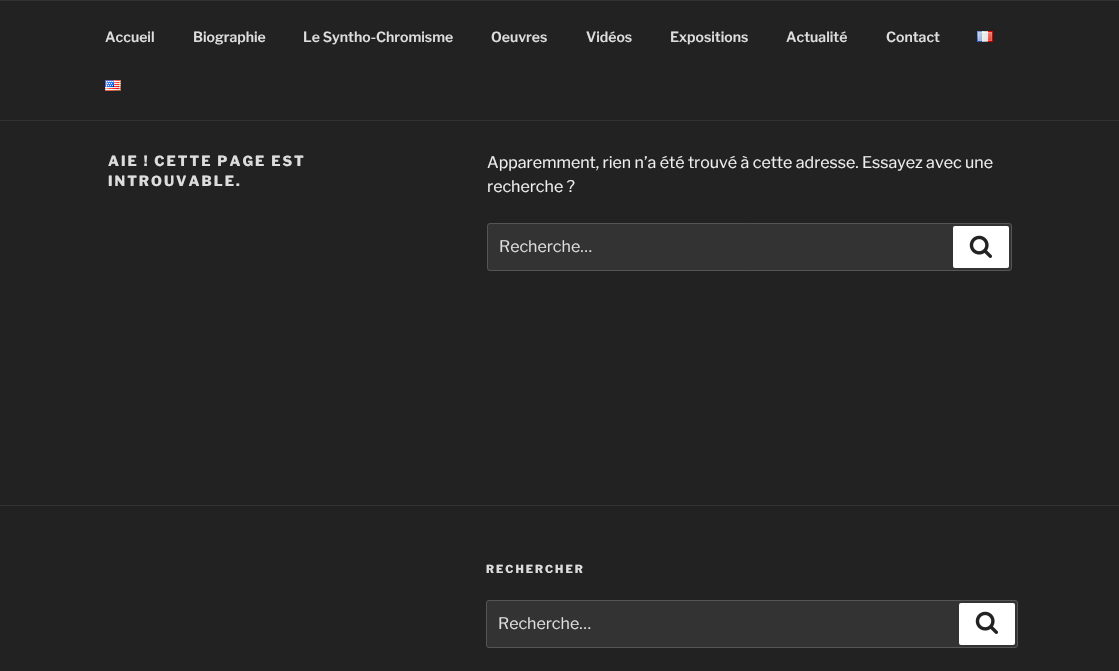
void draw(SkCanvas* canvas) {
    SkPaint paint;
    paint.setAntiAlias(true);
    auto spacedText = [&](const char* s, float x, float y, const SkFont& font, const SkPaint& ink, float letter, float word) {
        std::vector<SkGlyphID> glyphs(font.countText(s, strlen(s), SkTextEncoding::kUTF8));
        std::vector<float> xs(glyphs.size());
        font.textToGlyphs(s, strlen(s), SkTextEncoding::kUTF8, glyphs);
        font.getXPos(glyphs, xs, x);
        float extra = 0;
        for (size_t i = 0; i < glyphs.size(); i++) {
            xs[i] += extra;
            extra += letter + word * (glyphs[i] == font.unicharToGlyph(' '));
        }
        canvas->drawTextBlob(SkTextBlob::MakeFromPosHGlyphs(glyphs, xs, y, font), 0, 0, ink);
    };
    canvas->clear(0xFF222222);
    paint.setColor(0xFF333333);
    canvas->drawRect(SkRect::MakeXYWH(0, 0, 1119, 1), paint);
    canvas->drawRect(SkRect::MakeXYWH(0, 120, 1119, 1), paint);
    SkFont font1(fontMgr->matchFamilyStyle("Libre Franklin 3", SkFontStyle(100, SkFontStyle::kNormal_Width, SkFontStyle::kUpright_Slant)), 14);
    font1.setSubpixel(true);
    paint.setColor(0xFFDDDDDD);
    canvas->drawString("Accueil", 105, 42, font1, paint);
    canvas->drawString("Biographie", 193, 42, font1, paint);
    canvas->drawString("Le Syntho-Chromisme", 303, 42, font1, paint);
    canvas->drawString("Oeuvres", 491, 42, font1, paint);
    canvas->drawString("Vidéos", 586, 42, font1, paint);
    canvas->drawString("Expositions", 670, 42, font1, paint);
    canvas->drawString("Actualité", 786, 42, font1, paint);
    canvas->drawString("Contact", 886, 42, font1, paint);
    canvas->drawImageRect(SkImages::DeferredFromEncodedData(SkData::MakeFromFileName("img1.png")), SkRect::MakeXYWH(977, 31, 16, 11), SkSamplingOptions());
    canvas->drawImageRect(SkImages::DeferredFromEncodedData(SkData::MakeFromFileName("img2.png")), SkRect::MakeXYWH(105, 80, 16, 11), SkSamplingOptions());
    SkFont font2(fontMgr->matchFamilyStyle("Libre Franklin", SkFontStyle(100, SkFontStyle::kNormal_Width, SkFontStyle::kUpright_Slant)), 14);
    font2.setSubpixel(true);
    spacedText("AIE ! CETTE PAGE EST", 108, 166, font2, paint, 2, 0);
    spacedText("INTROUVABLE.", 108, 186, font2, paint, 2, 0);
    SkFont font3(fontMgr->matchFamilyStyle("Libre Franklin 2", SkFontStyle(100, SkFontStyle::kNormal_Width, SkFontStyle::kUpright_Slant)), 16);
    font3.setSubpixel(true);
    paint.setColor(0xFFEEEEEE);
    canvas->drawString("Apparemment, rien n’a été trouvé à cette adresse. Essayez avec une", 487, 168, font3, paint);
    canvas->drawString("recherche ?", 487, 192, font3, paint);
    paint.setColor(0xFF333333);
    canvas->drawRoundRect(SkRect::MakeXYWH(487.5f, 223.5f, 524, 47), 2.5f, 2.5f, paint);
    paint.setStyle(SkPaint::kStroke_Style);
    paint.setStrokeWidth(1);
    paint.setColor(0xFF555555);
    canvas->drawRoundRect(SkRect::MakeXYWH(487.5f, 223.5f, 524, 47), 2.5f, 2.5f, paint);
    paint.setStyle(SkPaint::kFill_Style);
    paint.setColor(0xFFDDDDDD);
    canvas->drawString("Recherche…", 499, 252, font3, paint);
    paint.setColor(0xFFFFFFFF);
    canvas->drawRoundRect(SkRect::MakeXYWH(953, 226, 56, 42), 2, 2, paint);
    canvas->drawImageRect(SkImages::DeferredFromEncodedData(SkData::MakeFromFileName("img3.png")), SkRect::MakeXYWH(969, 235, 23, 23), SkSamplingOptions());
    paint.setColor(0xFF333333);
    canvas->drawRect(SkRect::MakeXYWH(0, 505, 1119, 1), paint);
    SkFont font4(fontMgr->matchFamilyStyle("Libre Franklin", SkFontStyle(100, SkFontStyle::kNormal_Width, SkFontStyle::kUpright_Slant)), 11);
    font4.setSubpixel(true);
    paint.setColor(0xFFDDDDDD);
    spacedText("RECHERCHER", 486, 573, font4, paint, 2, 0);
    paint.setColor(0xFF333333);
    canvas->drawRoundRect(SkRect::MakeXYWH(486.5f, 600.5f, 531, 47), 2.5f, 2.5f, paint);
    paint.setStyle(SkPaint::kStroke_Style);
    paint.setColor(0xFF555555);
    canvas->drawRoundRect(SkRect::MakeXYWH(486.5f, 600.5f, 531, 47), 2.5f, 2.5f, paint);
    paint.setStyle(SkPaint::kFill_Style);
    paint.setColor(0xFFDDDDDD);
    canvas->drawString("Recherche…", 498, 629, font3, paint);
    paint.setColor(0xFFFFFFFF);
    canvas->drawRoundRect(SkRect::MakeXYWH(959, 603, 56, 42), 2, 2, paint);
    canvas->drawImageRect(SkImages::DeferredFromEncodedData(SkData::MakeFromFileName("img3.png")), SkRect::MakeXYWH(975, 611, 23, 23), SkSamplingOptions());
}
